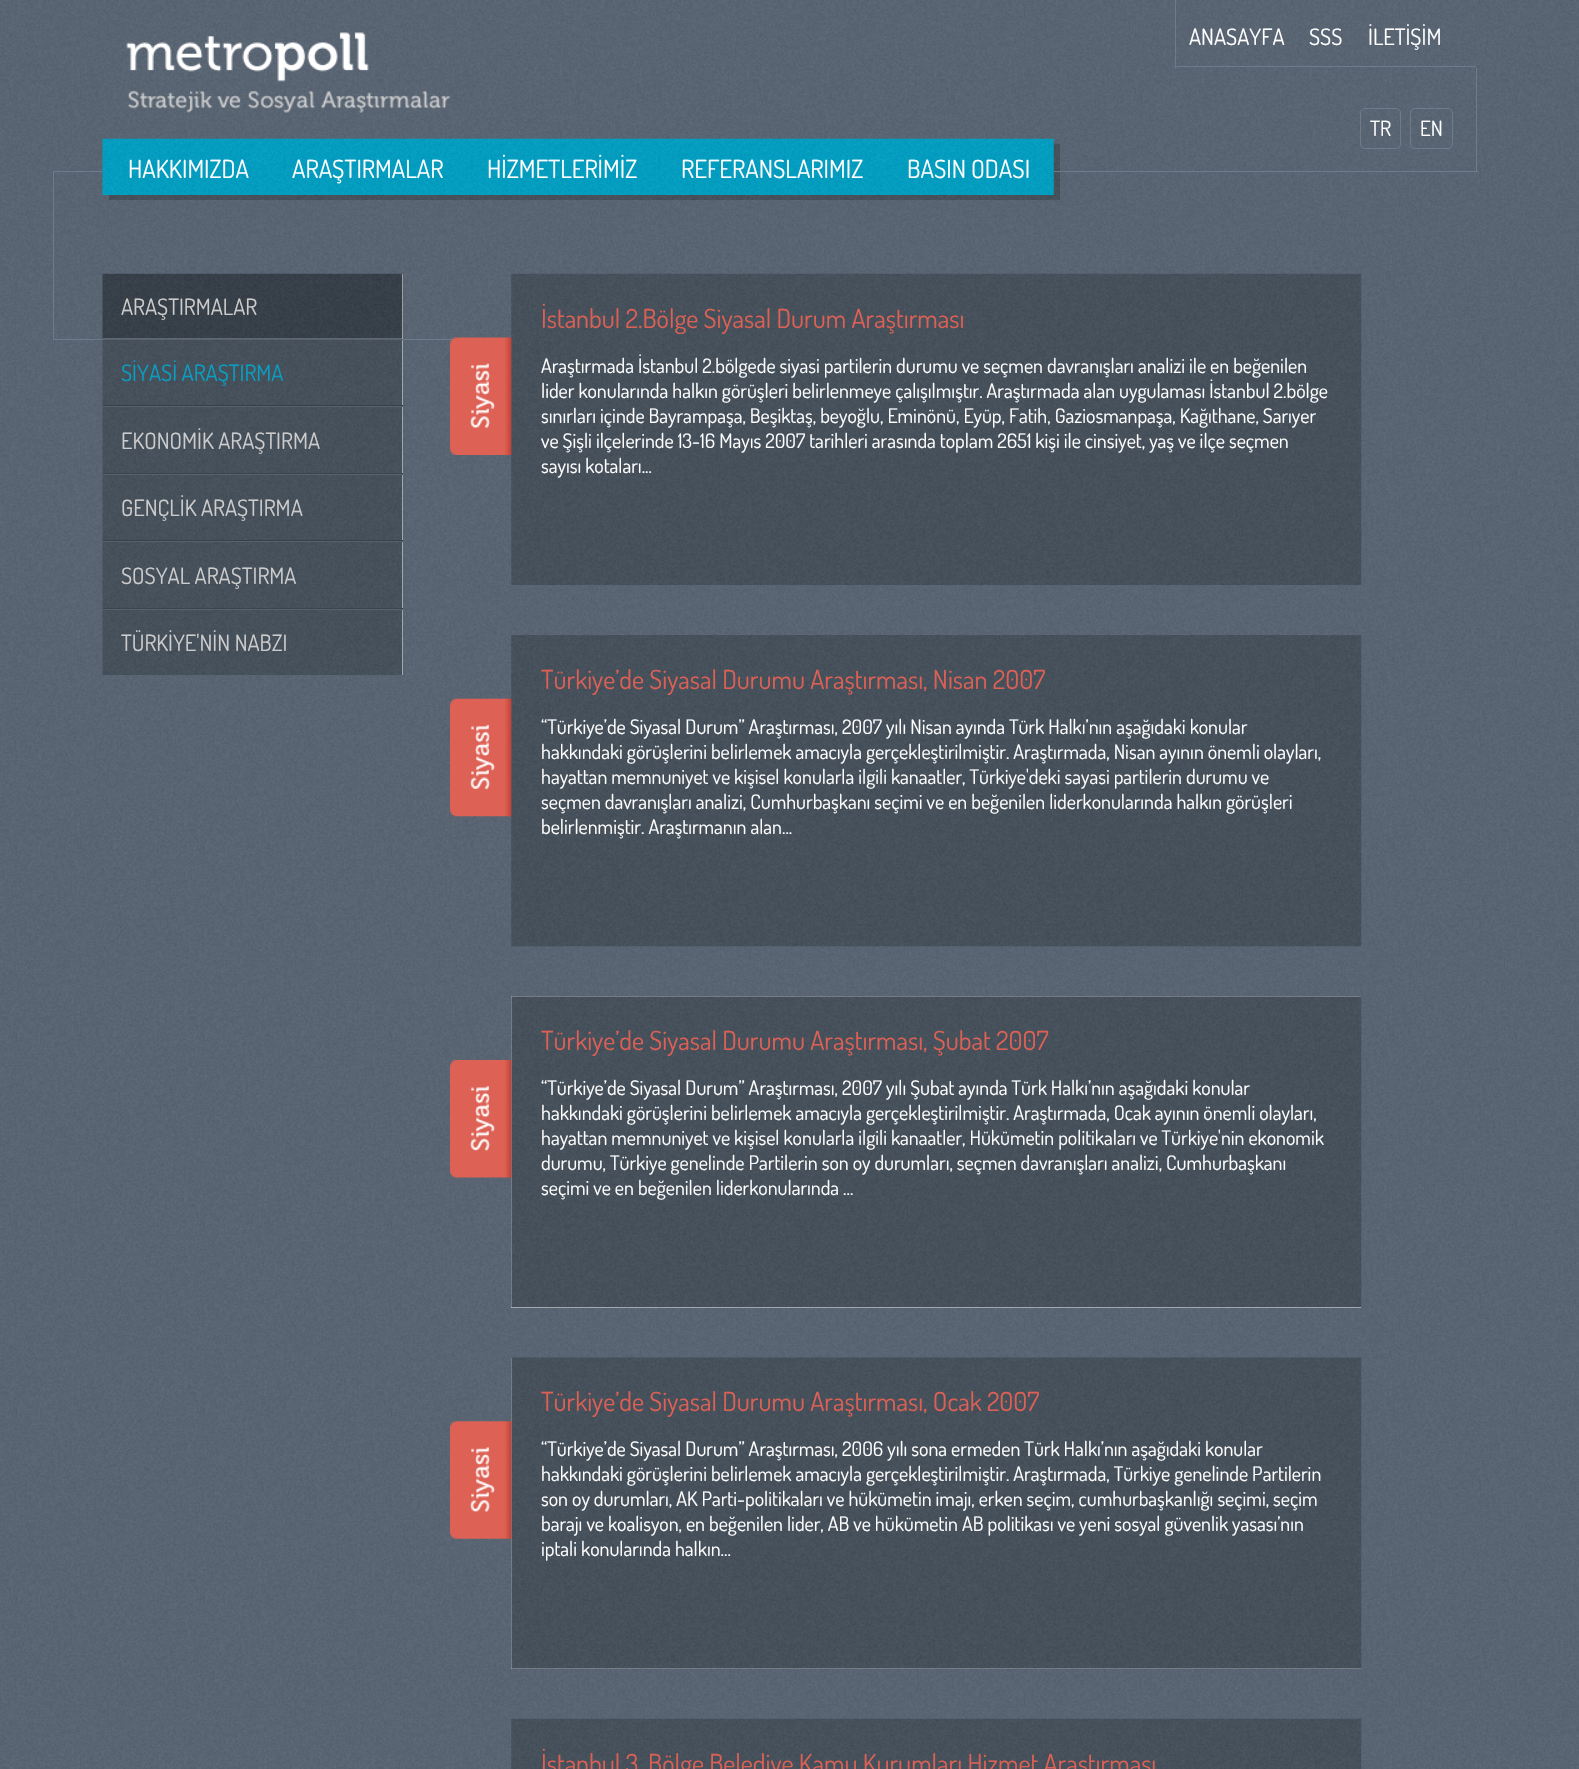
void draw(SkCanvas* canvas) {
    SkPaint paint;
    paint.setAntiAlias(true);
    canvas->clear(0xFFFFFFFF);
    canvas->drawImageRect(SkImages::DeferredFromEncodedData(SkData::MakeFromFileName("img1.png")), SkRect::MakeXYWH(0, 0, 1579, 1769), SkSamplingOptions());
    canvas->drawImageRect(SkImages::DeferredFromEncodedData(SkData::MakeFromFileName("img3.png")), SkRect::MakeXYWH(108, 143, 952, 57), SkSamplingOptions());
    paint.setColor(0xFF6D7C8D);
    canvas->drawRect(SkRect::MakeXYWH(1054, 171, 424, 1), paint);
    canvas->drawRect(SkRect::MakeXYWH(1175, 66, 301, 1), paint);
    canvas->drawRect(SkRect::MakeXYWH(1175, 0, 1, 68), paint);
    SkFont font1(fontMgr->matchFamilyStyle("Dosis", SkFontStyle::Normal()), 22.5f);
    font1.setSubpixel(true);
    paint.setColor(0xFFFFFFFF);
    canvas->drawString("ANASAYFA", 1189, 45, font1, paint);
    canvas->drawString("SSS", 1309, 45, font1, paint);
    canvas->drawString("İLETİŞİM", 1368, 45, font1, paint);
    paint.setColor(0xFF6D7C8D);
    canvas->drawRect(SkRect::MakeXYWH(1476, 68, 1, 103), paint);
    paint.setStyle(SkPaint::kStroke_Style);
    paint.setStrokeWidth(1);
    canvas->drawRoundRect(SkRect::MakeXYWH(1360.5f, 108.5f, 40, 40), 4.5f, 4.5f, paint);
    SkFont font2(fontMgr->matchFamilyStyle("Dosis", SkFontStyle::Normal()), 21);
    font2.setSubpixel(true);
    paint.setStyle(SkPaint::kFill_Style);
    paint.setColor(0xFFFFFFFF);
    canvas->drawString("TR", 1370, 136, font2, paint);
    paint.setStyle(SkPaint::kStroke_Style);
    paint.setColor(0xFF6D7C8D);
    canvas->drawRoundRect(SkRect::MakeXYWH(1410.5f, 108.5f, 42, 40), 4.5f, 4.5f, paint);
    paint.setStyle(SkPaint::kFill_Style);
    paint.setColor(0xFFFFFFFF);
    canvas->drawString("EN", 1420, 136, font2, paint);
    canvas->drawImageRect(SkImages::DeferredFromEncodedData(SkData::MakeFromFileName("img2.png")), SkRect::MakeXYWH(126, 32, 324, 81), SkSamplingOptions());
    paint.setColor(0xFF6D7C8D);
    canvas->drawRect(SkRect::MakeXYWH(53, 171, 50, 1), paint);
    canvas->drawImageRect(SkImages::DeferredFromEncodedData(SkData::MakeFromFileName("img4.png")), SkRect::MakeXYWH(102, 138, 952, 57), SkSamplingOptions());
    SkFont font3(fontMgr->matchFamilyStyle("Dosis", SkFontStyle::Normal()), 25);
    font3.setSubpixel(true);
    paint.setColor(0xFFFFFFFF);
    canvas->drawString("HAKKIMIZDA", 128, 178, font3, paint);
    canvas->drawString("ARAŞTIRMALAR", 292, 178, font3, paint);
    canvas->drawString("HİZMETLERİMİZ", 487, 178, font3, paint);
    canvas->drawString("REFERANSLARIMIZ", 681, 178, font3, paint);
    canvas->drawString("BASIN ODASI", 907, 178, font3, paint);
    paint.setColor(0xFF6D7C8D);
    canvas->drawRect(SkRect::MakeXYWH(53, 339, 460, 1), paint);
    canvas->drawRect(SkRect::MakeXYWH(53, 171, 1, 169), paint);
    paint.setColor(0xFFFFFFFF);
    canvas->drawRect(SkRect::MakeXYWH(103, 274, 300, 65), paint);
    canvas->drawImageRect(SkImages::DeferredFromEncodedData(SkData::MakeFromFileName("img5.png")), SkRect::MakeXYWH(102, 273, 301, 66), SkSamplingOptions());
    paint.setColor(0xFFCCCCCC);
    canvas->drawString("ARAŞTIRMALAR", 121, 315, font1, paint);
    paint.setColor(0xFFFFFFFF);
    canvas->drawRect(SkRect::MakeXYWH(402, 340, 1, 65), paint);
    canvas->drawImageRect(SkImages::DeferredFromEncodedData(SkData::MakeFromFileName("img6.png")), SkRect::MakeXYWH(102, 338, 301, 69), SkSamplingOptions());
    paint.setColor(0xFF566270);
    canvas->drawRect(SkRect::MakeXYWH(103, 339, 300, 1), paint);
    paint.setColor(0xFF384047);
    canvas->drawRect(SkRect::MakeXYWH(103, 405, 300, 1), paint);
    paint.setColor(0xFF07A0C3);
    canvas->drawString("SİYASİ ARAŞTIRMA", 121, 381, font1, paint);
    paint.setColor(0xFFFFFFFF);
    canvas->drawRect(SkRect::MakeXYWH(402, 407, 1, 66), paint);
    canvas->drawImageRect(SkImages::DeferredFromEncodedData(SkData::MakeFromFileName("img7.png")), SkRect::MakeXYWH(102, 406, 301, 68), SkSamplingOptions());
    paint.setColor(0xFF566270);
    canvas->drawRect(SkRect::MakeXYWH(103, 406, 300, 1), paint);
    paint.setColor(0xFF384047);
    canvas->drawRect(SkRect::MakeXYWH(103, 473, 300, 1), paint);
    paint.setColor(0xFFCCCCCC);
    canvas->drawString("EKONOMİK ARAŞTIRMA", 121, 449, font1, paint);
    paint.setColor(0xFFFFFFFF);
    canvas->drawRect(SkRect::MakeXYWH(402, 475, 1, 65), paint);
    canvas->drawImageRect(SkImages::DeferredFromEncodedData(SkData::MakeFromFileName("img8.png")), SkRect::MakeXYWH(102, 473, 301, 69), SkSamplingOptions());
    paint.setColor(0xFF566270);
    canvas->drawRect(SkRect::MakeXYWH(103, 474, 300, 1), paint);
    paint.setColor(0xFF384047);
    canvas->drawRect(SkRect::MakeXYWH(103, 540, 300, 1), paint);
    paint.setColor(0xFFCCCCCC);
    canvas->drawString("GENÇLİK ARAŞTIRMA", 121, 516, font1, paint);
    paint.setColor(0xFFFFFFFF);
    canvas->drawRect(SkRect::MakeXYWH(402, 542, 1, 66), paint);
    canvas->drawImageRect(SkImages::DeferredFromEncodedData(SkData::MakeFromFileName("img9.png")), SkRect::MakeXYWH(102, 541, 301, 68), SkSamplingOptions());
    paint.setColor(0xFF566270);
    canvas->drawRect(SkRect::MakeXYWH(103, 541, 300, 1), paint);
    paint.setColor(0xFF384047);
    canvas->drawRect(SkRect::MakeXYWH(103, 608, 300, 1), paint);
    paint.setColor(0xFFCCCCCC);
    canvas->drawString("SOSYAL ARAŞTIRMA", 121, 584, font1, paint);
    paint.setColor(0xFFFFFFFF);
    canvas->drawRect(SkRect::MakeXYWH(402, 610, 1, 65), paint);
    canvas->drawImageRect(SkImages::DeferredFromEncodedData(SkData::MakeFromFileName("img10.png")), SkRect::MakeXYWH(102, 608, 301, 67), SkSamplingOptions());
    paint.setColor(0xFF566270);
    canvas->drawRect(SkRect::MakeXYWH(103, 609, 300, 1), paint);
    paint.setColor(0xFFCCCCCC);
    canvas->drawString("TÜRKİYE'NİN NABZI", 121, 651, font1, paint);
    canvas->drawImageRect(SkImages::DeferredFromEncodedData(SkData::MakeFromFileName("img12.png")), SkRect::MakeXYWH(511, 273, 851, 312), SkSamplingOptions());
    canvas->drawImageRect(SkImages::DeferredFromEncodedData(SkData::MakeFromFileName("img11.png")), SkRect::MakeXYWH(450, 337, 62, 118), SkSamplingOptions());
    SkFont font4(fontMgr->matchFamilyStyle("Dosis", SkFontStyle::Normal()), 26.25f);
    font4.setSubpixel(true);
    paint.setColor(0xFFDD6054);
    canvas->drawString("İstanbul 2.Bölge Siyasal Durum Araştırması", 541, 328, font4, paint);
    SkFont font5(fontMgr->matchFamilyStyle("Dosis", SkFontStyle::Normal()), 20);
    font5.setSubpixel(true);
    paint.setColor(0xFFFFFFFF);
    canvas->drawString("Araştırmada İstanbul 2.bölgede siyasi partilerin durumu ve seçmen davranışları analizi ile en beğenilen", 541, 373, font5, paint);
    canvas->drawString("lider konularında halkın görüşleri belirlenmeye çalışılmıştır. Araştırmada alan uygulaması İstanbul 2.bölge", 541, 398, font5, paint);
    canvas->drawString("sınırları içinde Bayrampaşa, Beşiktaş, beyoğlu, Eminönü, Eyüp, Fatih, Gaziosmanpaşa, Kağıthane, Sarıyer", 541, 423, font5, paint);
    canvas->drawString("ve Şişli ilçelerinde 13-16 Mayıs 2007 tarihleri arasında toplam 2651 kişi ile cinsiyet, yaş ve ilçe seçmen", 541, 448, font5, paint);
    canvas->drawString("sayısı kotaları...", 541, 473, font5, paint);
    canvas->drawImageRect(SkImages::DeferredFromEncodedData(SkData::MakeFromFileName("img14.png")), SkRect::MakeXYWH(511, 635, 851, 312), SkSamplingOptions());
    canvas->drawImageRect(SkImages::DeferredFromEncodedData(SkData::MakeFromFileName("img13.png")), SkRect::MakeXYWH(450, 698, 62, 119), SkSamplingOptions());
    paint.setColor(0xFFDD6054);
    canvas->drawString("Türkiye’de Siyasal Durumu Araştırması, Nisan 2007", 541, 689, font4, paint);
    paint.setColor(0xFFFFFFFF);
    canvas->drawString("“Türkiye’de Siyasal Durum” Araştırması, 2007 yılı Nisan ayında Türk Halkı’nın aşağıdaki konular", 541, 734, font5, paint);
    canvas->drawString("hakkındaki görüşlerini belirlemek amacıyla gerçekleştirilmiştir. Araştırmada, Nisan ayının önemli olayları,", 541, 759, font5, paint);
    canvas->drawString("hayattan memnuniyet ve kişisel konularla ilgili kanaatler, Türkiye'deki sayasi partilerin durumu ve", 541, 784, font5, paint);
    canvas->drawString("seçmen davranışları analizi, Cumhurbaşkanı seçimi ve en beğenilen liderkonularında halkın görüşleri", 541, 809, font5, paint);
    canvas->drawString("belirlenmiştir. Araştırmanın alan...", 541, 834, font5, paint);
    canvas->drawRect(SkRect::MakeXYWH(511, 996, 850, 312), paint);
    canvas->drawImageRect(SkImages::DeferredFromEncodedData(SkData::MakeFromFileName("img16.png")), SkRect::MakeXYWH(511, 996, 851, 312), SkSamplingOptions());
    canvas->drawImageRect(SkImages::DeferredFromEncodedData(SkData::MakeFromFileName("img15.png")), SkRect::MakeXYWH(450, 1060, 62, 118), SkSamplingOptions());
    paint.setColor(0xFFDD6054);
    canvas->drawString("Türkiye’de Siyasal Durumu Araştırması, Şubat 2007", 541, 1050, font4, paint);
    paint.setColor(0xFFFFFFFF);
    canvas->drawString("“Türkiye’de Siyasal Durum” Araştırması, 2007 yılı Şubat ayında Türk Halkı’nın aşağıdaki konular", 541, 1095, font5, paint);
    canvas->drawString("hakkındaki görüşlerini belirlemek amacıyla gerçekleştirilmiştir. Araştırmada, Ocak ayının önemli olayları,", 541, 1120, font5, paint);
    canvas->drawString("hayattan memnuniyet ve kişisel konularla ilgili kanaatler, Hükümetin politikaları ve Türkiye'nin ekonomik", 541, 1145, font5, paint);
    canvas->drawString("durumu, Türkiye genelinde Partilerin son oy durumları, seçmen davranışları analizi, Cumhurbaşkanı", 541, 1170, font5, paint);
    canvas->drawString("seçimi ve en beğenilen liderkonularında ...", 541, 1195, font5, paint);
    canvas->drawRect(SkRect::MakeXYWH(511, 1358, 850, 311), paint);
    canvas->drawImageRect(SkImages::DeferredFromEncodedData(SkData::MakeFromFileName("img18.png")), SkRect::MakeXYWH(511, 1357, 851, 312), SkSamplingOptions());
    canvas->drawImageRect(SkImages::DeferredFromEncodedData(SkData::MakeFromFileName("img17.png")), SkRect::MakeXYWH(450, 1421, 62, 118), SkSamplingOptions());
    paint.setColor(0xFFDD6054);
    canvas->drawString("Türkiye’de Siyasal Durumu Araştırması, Ocak 2007", 541, 1411, font4, paint);
    paint.setColor(0xFFFFFFFF);
    canvas->drawString("“Türkiye’de Siyasal Durum” Araştırması, 2006 yılı sona ermeden Türk Halkı’nın aşağıdaki konular", 541, 1456, font5, paint);
    canvas->drawString("hakkındaki görüşlerini belirlemek amacıyla gerçekleştirilmiştir. Araştırmada, Türkiye genelinde Partilerin", 541, 1481, font5, paint);
    canvas->drawString("son oy durumları, AK Parti-politikaları ve hükümetin imajı, erken seçim, cumhurbaşkanlığı seçimi, seçim", 541, 1506, font5, paint);
    canvas->drawString("barajı ve koalisyon, en beğenilen lider, AB ve hükümetin AB politikası ve yeni sosyal güvenlik yasası’nın", 541, 1531, font5, paint);
    canvas->drawString("iptali konularında halkın...", 541, 1556, font5, paint);
    canvas->drawImageRect(SkImages::DeferredFromEncodedData(SkData::MakeFromFileName("img19.png")), SkRect::MakeXYWH(511, 1718, 851, 51), SkSamplingOptions());
    paint.setColor(0xFFDD6054);
    canvas->drawString("İstanbul 3. Bölge Belediye Kamu Kurumları Hizmet Araştırması", 541, 1773, font4, paint);
}
